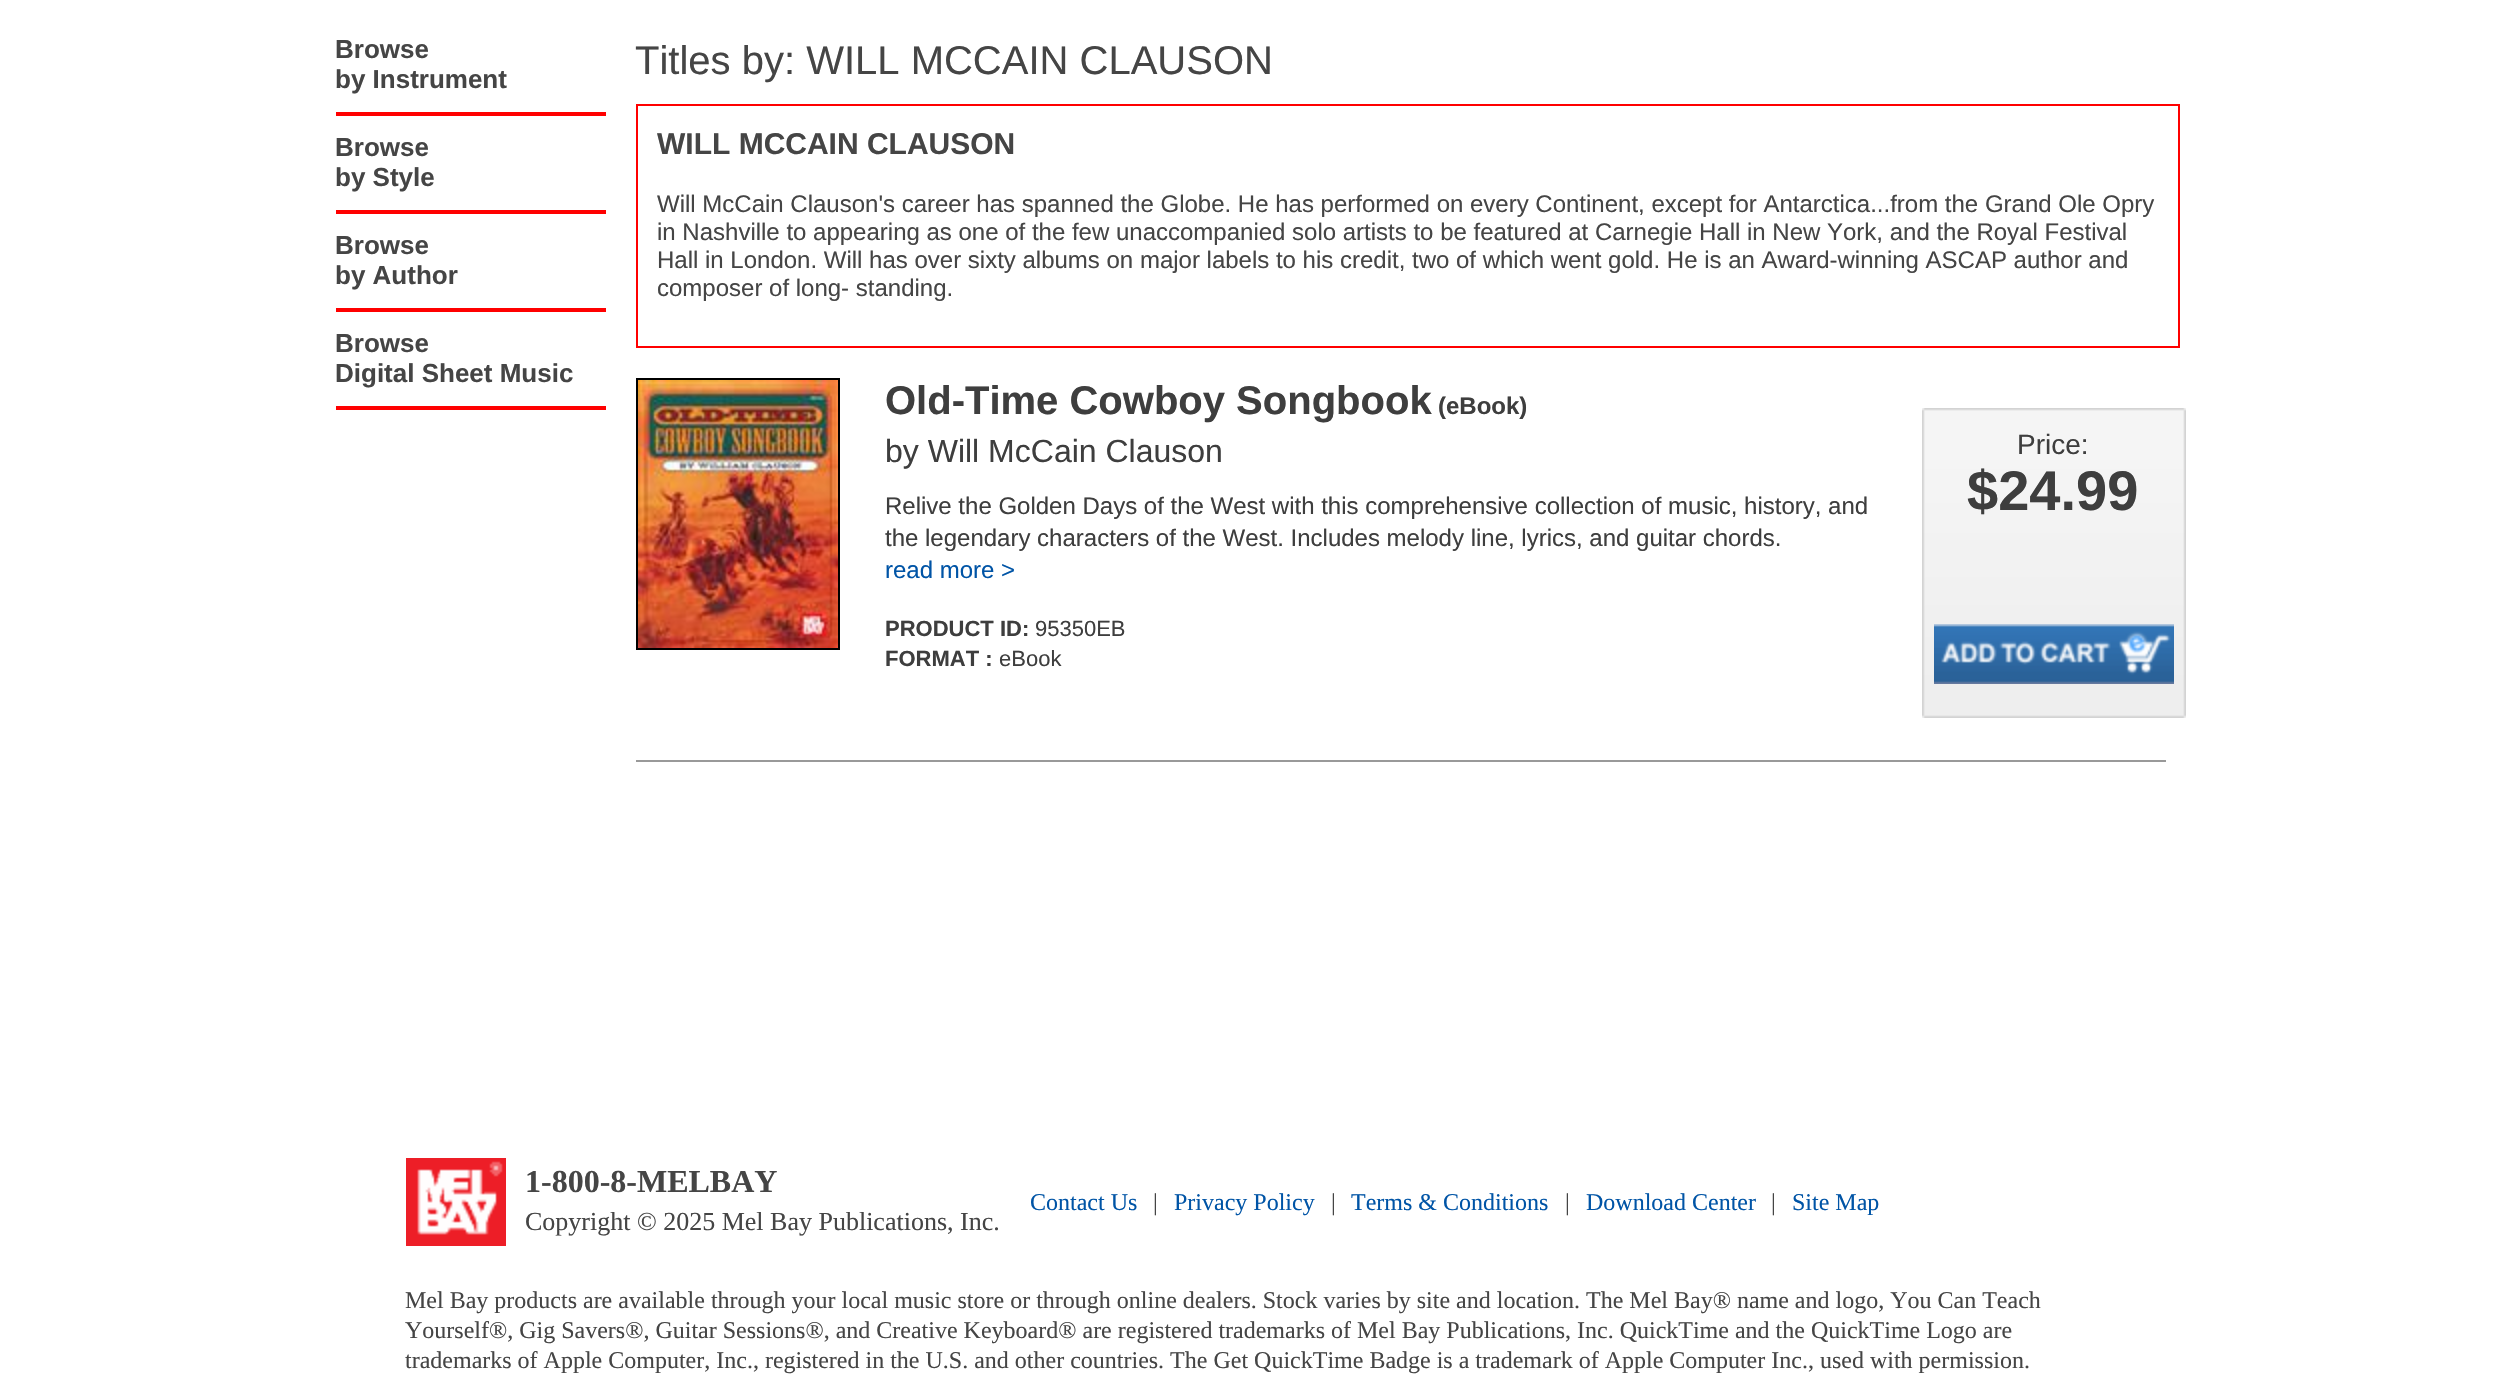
void draw(SkCanvas* canvas) {
    SkPaint paint;
    paint.setAntiAlias(true);
    canvas->clear(0xFFFFFFFF);
    SkFont font1(fontMgr->matchFamilyStyle("Liberation Sans", SkFontStyle::Bold()), 26);
    font1.setSubpixel(true);
    paint.setColor(0xFF454545);
    canvas->drawString("Browse", 335, 58, font1, paint);
    canvas->drawString("by Instrument", 335, 88, font1, paint);
    paint.setColor(0xFFFF0000);
    canvas->drawRect(SkRect::MakeXYWH(336, 112, 270, 4), paint);
    paint.setColor(0xFF454545);
    canvas->drawString("Browse", 335, 156, font1, paint);
    canvas->drawString("by Style", 335, 186, font1, paint);
    paint.setColor(0xFFFF0000);
    canvas->drawRect(SkRect::MakeXYWH(336, 210, 270, 4), paint);
    paint.setColor(0xFF454545);
    canvas->drawString("Browse", 335, 254, font1, paint);
    canvas->drawString("by Author", 335, 284, font1, paint);
    paint.setColor(0xFFFF0000);
    canvas->drawRect(SkRect::MakeXYWH(336, 308, 270, 4), paint);
    paint.setColor(0xFF454545);
    canvas->drawString("Browse", 335, 352, font1, paint);
    canvas->drawString("Digital Sheet Music", 335, 382, font1, paint);
    paint.setColor(0xFFFF0000);
    canvas->drawRect(SkRect::MakeXYWH(336, 406, 270, 4), paint);
    SkFont font2(fontMgr->matchFamilyStyle("Liberation Sans", SkFontStyle::Normal()), 40);
    font2.setSubpixel(true);
    paint.setColor(0xFF454545);
    canvas->drawString("Titles by: WILL MCCAIN CLAUSON", 635, 74, font2, paint);
    paint.setStyle(SkPaint::kStroke_Style);
    paint.setStrokeWidth(2);
    paint.setColor(0xFFFF0000);
    canvas->drawRect(SkRect::MakeXYWH(637, 105, 1542, 242), paint);
    SkFont font3(fontMgr->matchFamilyStyle("Liberation Sans", SkFontStyle::Bold()), 30);
    font3.setSubpixel(true);
    paint.setStyle(SkPaint::kFill_Style);
    paint.setColor(0xFF454545);
    canvas->drawString("WILL MCCAIN CLAUSON", 657, 154, font3, paint);
    SkFont font4(fontMgr->matchFamilyStyle("Liberation Sans", SkFontStyle::Normal()), 24);
    font4.setSubpixel(true);
    canvas->drawString("Will McCain Clauson's career has spanned the Globe. He has performed on every Continent, except for Antarctica...from the Grand Ole Opry", 657, 212, font4, paint);
    canvas->drawString("in Nashville to appearing as one of the few unaccompanied solo artists to be featured at Carnegie Hall in New York, and the Royal Festival", 657, 240, font4, paint);
    canvas->drawString("Hall in London. Will has over sixty albums on major labels to his credit, two of which went gold. He is an Award-winning ASCAP author and", 657, 268, font4, paint);
    canvas->drawString("composer of long- standing.", 657, 296, font4, paint);
    paint.setStyle(SkPaint::kStroke_Style);
    paint.setColor(0xFF000000);
    canvas->drawRect(SkRect::MakeXYWH(637, 379, 202, 270), paint);
    canvas->drawImageRect(SkImages::DeferredFromEncodedData(SkData::MakeFromFileName("img1.png")), SkRect::MakeXYWH(638, 380, 200, 268), SkSamplingOptions());
    SkFont font5(fontMgr->matchFamilyStyle("Liberation Sans", SkFontStyle::Bold()), 40);
    font5.setSubpixel(true);
    paint.setStyle(SkPaint::kFill_Style);
    paint.setColor(0xFF3E3E3E);
    canvas->drawString("Old-Time Cowboy Songbook", 885, 414, font5, paint);
    SkFont font6(fontMgr->matchFamilyStyle("Liberation Sans", SkFontStyle::Bold()), 24);
    font6.setSubpixel(true);
    canvas->drawString("(eBook)", 1438, 414, font6, paint);
    SkFont font7(fontMgr->matchFamilyStyle("Liberation Sans", SkFontStyle::Normal()), 32);
    font7.setSubpixel(true);
    canvas->drawString("by Will McCain Clauson", 885, 462, font7, paint);
    canvas->drawString("Relive the Golden Days of the West with this comprehensive collection of music, history, and", 885, 514, font4, paint);
    canvas->drawString("the legendary characters of the West. Includes melody line, lyrics, and guitar chords.", 885, 546, font4, paint);
    paint.setColor(0xFF0054A6);
    canvas->drawString("read more >", 885, 578, font4, paint);
    SkFont font8(fontMgr->matchFamilyStyle("Liberation Sans", SkFontStyle::Bold()), 22);
    font8.setSubpixel(true);
    paint.setColor(0xFF3E3E3E);
    canvas->drawString("PRODUCT ID:", 885, 636, font8, paint);
    SkFont font9(fontMgr->matchFamilyStyle("Liberation Sans", SkFontStyle::Normal()), 22);
    font9.setSubpixel(true);
    canvas->drawString("95350EB", 1035, 636, font9, paint);
    canvas->drawString("FORMAT :", 885, 666, font8, paint);
    canvas->drawString("eBook", 999, 666, font9, paint);
    canvas->drawImageRect(SkImages::DeferredFromEncodedData(SkData::MakeFromFileName("img2.png")), SkRect::MakeXYWH(1922, 408, 264, 310), SkSamplingOptions());
    SkFont font10(fontMgr->matchFamilyStyle("Liberation Sans", SkFontStyle::Normal()), 28);
    font10.setSubpixel(true);
    canvas->drawString("Price:", 2017, 454, font10, paint);
    SkFont font11(fontMgr->matchFamilyStyle("Liberation Sans", SkFontStyle::Bold()), 56);
    font11.setSubpixel(true);
    canvas->drawString("$24.99", 1967, 510, font11, paint);
    canvas->drawImageRect(SkImages::DeferredFromEncodedData(SkData::MakeFromFileName("img3.png")), SkRect::MakeXYWH(1934, 624, 240, 60), SkSamplingOptions());
    paint.setColor(0xFF999999);
    canvas->drawRect(SkRect::MakeXYWH(636, 760, 1530, 2), paint);
    canvas->drawImageRect(SkImages::DeferredFromEncodedData(SkData::MakeFromFileName("img4.png")), SkRect::MakeXYWH(406, 1158, 100, 88), SkSamplingOptions());
    SkFont font12(fontMgr->matchFamilyStyle("Liberation Serif", SkFontStyle::Bold()), 32);
    font12.setSubpixel(true);
    paint.setColor(0xFF454545);
    canvas->drawString("1-800-8-MELBAY", 525, 1192, font12, paint);
    SkFont font13(fontMgr->matchFamilyStyle("Liberation Serif", SkFontStyle::Normal()), 26);
    font13.setSubpixel(true);
    canvas->drawString("Copyright © 2025 Mel Bay Publications, Inc.", 525, 1230, font13, paint);
    SkFont font14(fontMgr->matchFamilyStyle("Liberation Serif", SkFontStyle::Normal()), 24);
    font14.setSubpixel(true);
    paint.setColor(0xFF0054A6);
    canvas->drawString("Contact Us", 1030, 1210, font14, paint);
    paint.setColor(0xFF454545);
    canvas->drawString("|", 1153, 1210, font14, paint);
    paint.setColor(0xFF0054A6);
    canvas->drawString("Privacy Policy", 1174, 1210, font14, paint);
    paint.setColor(0xFF454545);
    canvas->drawString("|", 1331, 1210, font14, paint);
    paint.setColor(0xFF0054A6);
    canvas->drawString("Terms & Conditions", 1351, 1210, font14, paint);
    paint.setColor(0xFF454545);
    canvas->drawString("|", 1565, 1210, font14, paint);
    paint.setColor(0xFF0054A6);
    canvas->drawString("Download Center", 1586, 1210, font14, paint);
    paint.setColor(0xFF454545);
    canvas->drawString("|", 1771, 1210, font14, paint);
    paint.setColor(0xFF0054A6);
    canvas->drawString("Site Map", 1792, 1210, font14, paint);
    paint.setColor(0xFF454545);
    canvas->drawString("Mel Bay products are available through your local music store or through online dealers. Stock varies by site and location. The Mel Bay® name and logo, You Can Teach", 405, 1308, font14, paint);
    canvas->drawString("Yourself®, Gig Savers®, Guitar Sessions®, and Creative Keyboard® are registered trademarks of Mel Bay Publications, Inc. QuickTime and the QuickTime Logo are", 405, 1338, font14, paint);
    canvas->drawString("trademarks of Apple Computer, Inc., registered in the U.S. and other countries. The Get QuickTime Badge is a trademark of Apple Computer Inc., used with permission.", 405, 1368, font14, paint);
}
